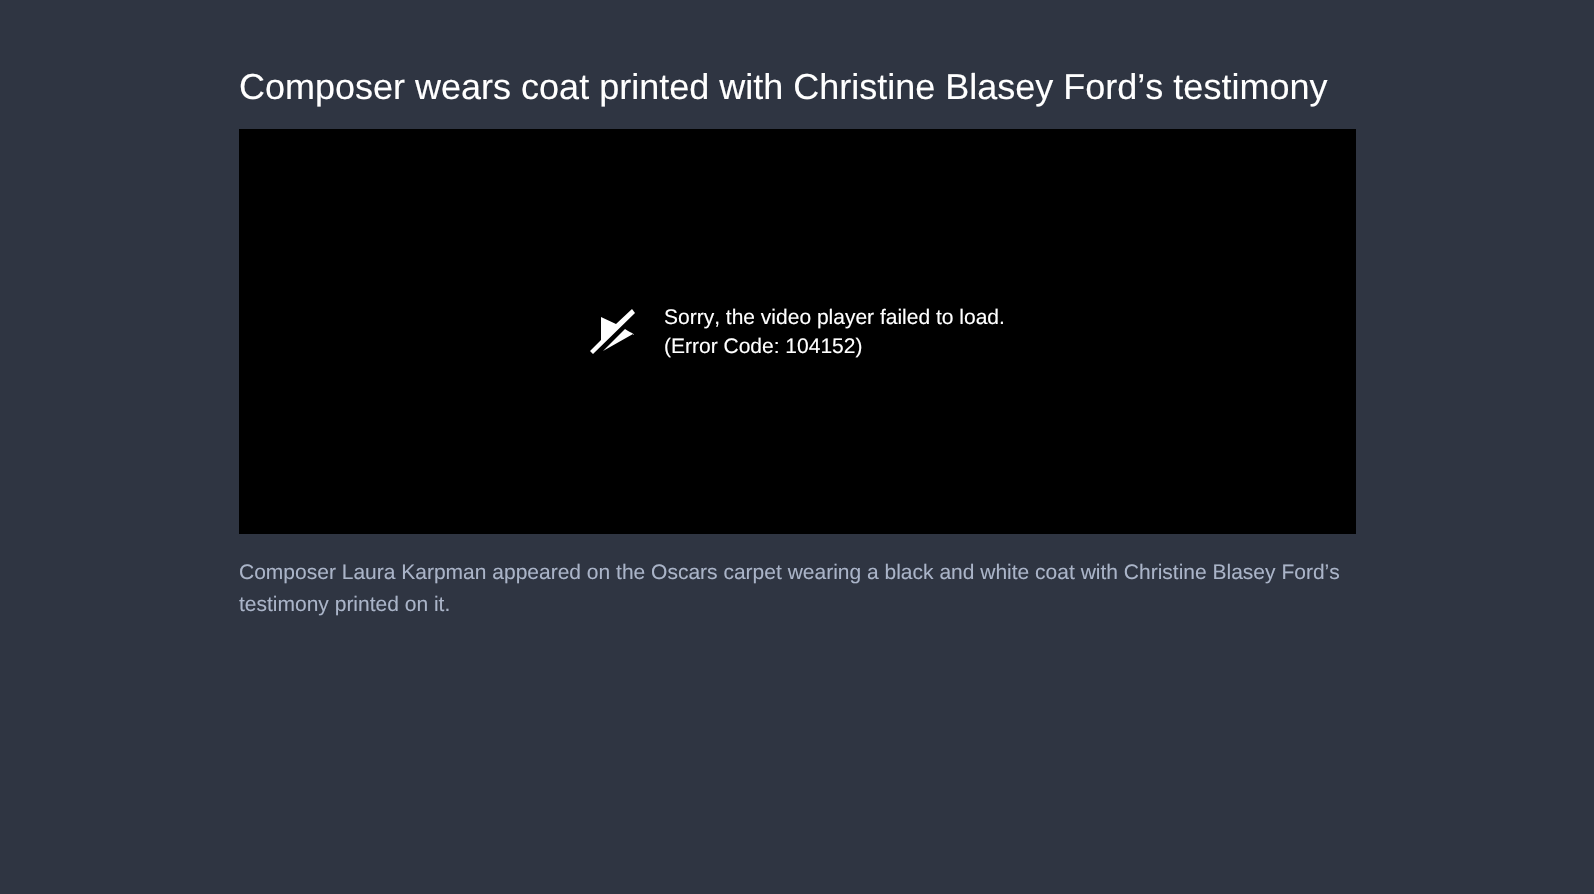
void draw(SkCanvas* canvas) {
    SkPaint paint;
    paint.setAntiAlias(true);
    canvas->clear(0xFF2F3542);
    SkFont font1(fontMgr->matchFamilyStyle("Liberation Sans", SkFontStyle::Normal()), 36);
    font1.setSubpixel(true);
    paint.setColor(0xFFFFFFFF);
    canvas->drawString("Composer wears coat printed with Christine Blasey Ford’s testimony", 239, 99, font1, paint);
    paint.setColor(0xFF000000);
    canvas->drawRect(SkRect::MakeXYWH(239, 129, 1117, 405), paint);
    paint.setColor(0xFFFFFFFF);
    canvas->drawPath(SkPathBuilder().moveTo(633, 334).lineTo(603, 351).lineTo(625, 329).cubicTo(633, 334, 635, 334, 633, 335).close().moveTo(632, 309).lineTo(616, 324).lineTo(601, 317).lineTo(601, 340).lineTo(590, 351).lineTo(593, 354).lineTo(635, 313).close().detach(), paint);
    SkFont font2(fontMgr->matchFamilyStyle("Liberation Sans", SkFontStyle::Normal()), 21);
    font2.setSubpixel(true);
    canvas->drawString("Sorry, the video player failed to load.", 664, 324, font2, paint);
    canvas->drawString("(Error Code: 104152)", 664, 353, font2, paint);
    paint.setColor(0xFFAAB4C8);
    canvas->drawString("Composer Laura Karpman appeared on the Oscars carpet wearing a black and white coat with Christine Blasey Ford’s", 239, 579, font2, paint);
    canvas->drawString("testimony printed on it.", 239, 611, font2, paint);
}
